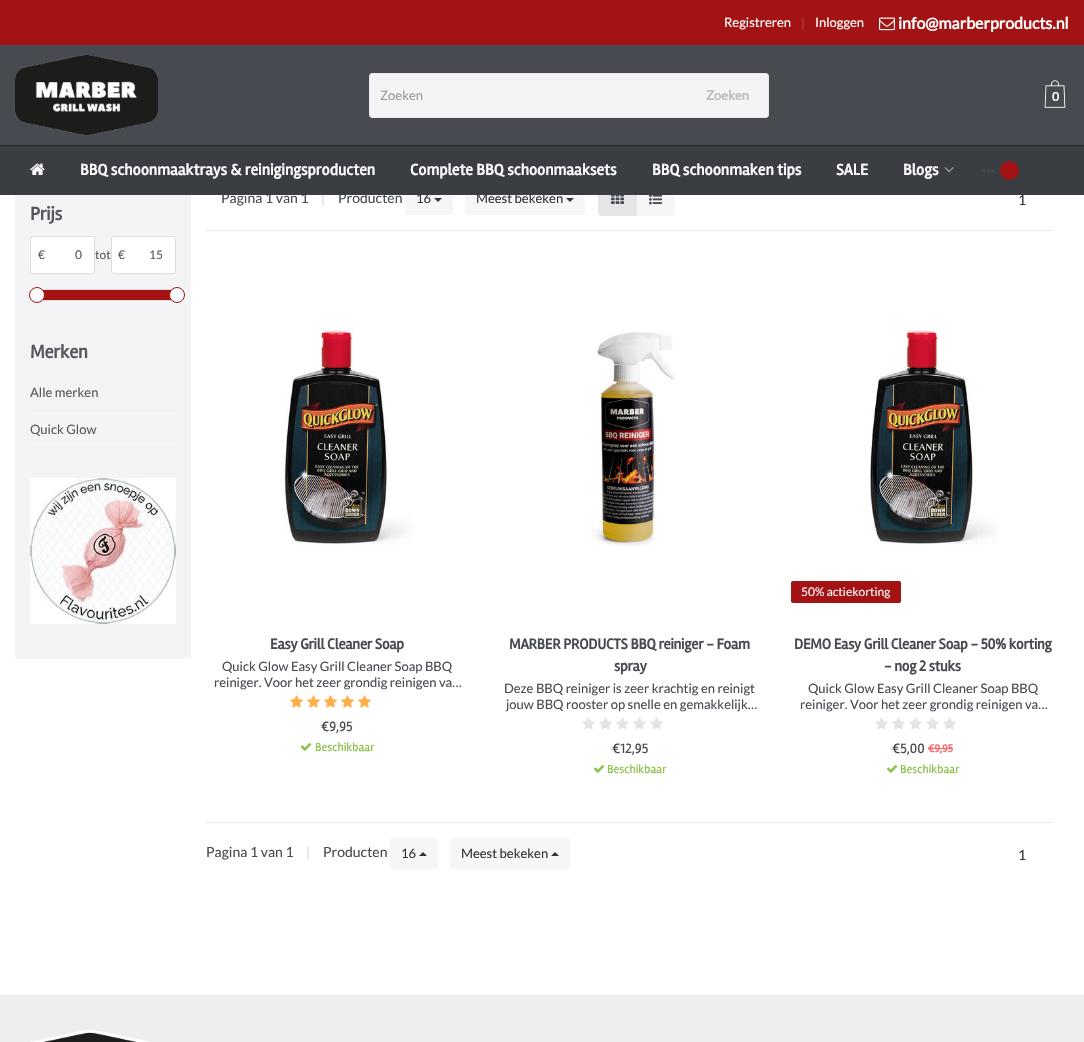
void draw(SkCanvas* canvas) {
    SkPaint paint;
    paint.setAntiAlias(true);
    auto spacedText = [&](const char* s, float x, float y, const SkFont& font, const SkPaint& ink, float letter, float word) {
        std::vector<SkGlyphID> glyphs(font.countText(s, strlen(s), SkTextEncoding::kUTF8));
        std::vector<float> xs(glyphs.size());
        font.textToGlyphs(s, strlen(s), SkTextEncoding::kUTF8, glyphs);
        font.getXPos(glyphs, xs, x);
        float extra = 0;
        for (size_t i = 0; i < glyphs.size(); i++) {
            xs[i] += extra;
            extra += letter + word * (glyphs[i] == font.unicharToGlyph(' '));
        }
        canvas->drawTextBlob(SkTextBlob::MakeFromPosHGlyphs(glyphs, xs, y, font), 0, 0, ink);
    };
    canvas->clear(0xFFFFFFFF);
    paint.setColor(0xFFA31313);
    canvas->drawRect(SkRect::MakeXYWH(0, 0, 1084, 45), paint);
    SkFont font1(fontMgr->matchFamilyStyle("Lato", SkFontStyle::Normal()), 13);
    font1.setSubpixel(true);
    paint.setColor(0xFFFFFFFF);
    canvas->drawString("Registreren", 724, 27, font1, paint);
    paint.setColor(0xFFB54242);
    canvas->drawString("|", 801, 27, font1, paint);
    paint.setColor(0xFFFFFFFF);
    canvas->drawString("Inloggen", 815, 27, font1, paint);
    canvas->drawImageRect(SkImages::DeferredFromEncodedData(SkData::MakeFromFileName("img1.png")), SkRect::MakeXYWH(879, 17, 16, 14), SkSamplingOptions());
    SkFont font2(fontMgr->matchFamilyStyle("Lato", SkFontStyle::Bold()), 16);
    font2.setSubpixel(true);
    canvas->drawString("info@marberproducts.nl", 898, 29, font2, paint);
    paint.setColor(0xFFF3F4F5);
    canvas->drawRoundRect(SkRect::MakeXYWH(15, 183, 176, 476), 3, 3, paint);
    SkFont font3(fontMgr->matchFamilyStyle("Lato", SkFontStyle::Normal()), 14);
    font3.setSubpixel(true);
    paint.setColor(0xFF474A51);
    canvas->drawString("Pagina 1 van 1", 221, 203, font3, paint);
    paint.setColor(0xFFDADBDC);
    canvas->drawString("|", 321, 203, font3, paint);
    paint.setColor(0xFF474A51);
    canvas->drawString("Producten", 338, 203, font3, paint);
    paint.setColor(0xFFF6F6F6);
    canvas->drawRoundRect(SkRect::MakeXYWH(405, 183, 48, 32), 3, 3, paint);
    paint.setColor(0xFF333333);
    canvas->drawString("16", 416, 203, font1, paint);
    paint.setColor(0xFFF6F6F6);
    canvas->drawRoundRect(SkRect::MakeXYWH(465, 183, 120, 32), 3, 3, paint);
    paint.setColor(0xFF333333);
    canvas->drawString("Meest bekeken", 476, 203, font1, paint);
    paint.setColor(0xFFF6F6F6);
    canvas->drawPath(SkPathBuilder().moveTo(636, 183).lineTo(672, 183).cubicTo(673.5f, 183, 675, 184.5f, 675, 186).lineTo(675, 213).cubicTo(675, 214.5f, 673.5f, 216, 672, 216).lineTo(636, 216).close().detach(), paint);
    paint.setColor(0xFFE6E6E6);
    canvas->drawPath(SkPathBuilder().moveTo(601, 183).lineTo(637, 183).lineTo(637, 216).lineTo(601, 216).cubicTo(599.5f, 216, 598, 214.5f, 598, 213).lineTo(598, 186).cubicTo(598, 184.5f, 599.5f, 183, 601, 183).close().detach(), paint);
    paint.setColor(0xFF333333);
    canvas->drawString("1", 1018, 205, font3, paint);
    paint.setColor(0xFF3A3D41);
    canvas->drawRect(SkRect::MakeXYWH(0, 146, 1084, 49), paint);
    paint.setColor(0xFF474A51);
    canvas->drawRect(SkRect::MakeXYWH(0, 45, 15, 100), paint);
    canvas->drawRect(SkRect::MakeXYWH(15, 45, 1069, 100), paint);
    canvas->drawImageRect(SkImages::DeferredFromEncodedData(SkData::MakeFromFileName("img2.png")), SkRect::MakeXYWH(15, 55, 143, 80), SkSamplingOptions());
    paint.setColor(0xFFF3F4F5);
    canvas->drawRoundRect(SkRect::MakeXYWH(369, 73, 400, 45), 4, 4, paint);
    paint.setStyle(SkPaint::kStroke_Style);
    paint.setStrokeWidth(1);
    paint.setColor(0x80DDDDDD);
    canvas->drawRoundRect(SkRect::MakeXYWH(369.5f, 73.5f, 399, 44), 3.5f, 3.5f, paint);
    paint.setStyle(SkPaint::kFill_Style);
    paint.setColor(0xFF999999);
    canvas->drawString("Zoeken", 380, 100, font1, paint);
    SkFont font4(fontMgr->matchFamilyStyle("Lato", SkFontStyle::Bold()), 13);
    font4.setSubpixel(true);
    paint.setColor(0xFFBBBBBB);
    canvas->drawString("Zoeken", 706, 100, font4, paint);
    canvas->drawImageRect(SkImages::DeferredFromEncodedData(SkData::MakeFromFileName("img3.png")), SkRect::MakeXYWH(1044, 80, 22, 28), SkSamplingOptions());
    SkFont font5(fontMgr->matchFamilyStyle("Lato", SkFontStyle::Bold()), 12);
    font5.setSubpixel(true);
    paint.setColor(0xFFFFFFFF);
    canvas->drawString("0", 1052, 101, font5, paint);
    canvas->drawImageRect(SkImages::DeferredFromEncodedData(SkData::MakeFromFileName("img4.png")), SkRect::MakeXYWH(30, 163, 15, 12), SkSamplingOptions());
    SkFont font6(fontMgr->matchFamilyStyle("Rambla", SkFontStyle::Bold()), 16);
    font6.setSubpixel(true);
    canvas->drawString("BBQ schoonmaaktrays & reinigingsproducten", 80, 175, font6, paint);
    canvas->drawString("Complete BBQ schoonmaaksets", 410, 175, font6, paint);
    canvas->drawString("BBQ schoonmaken tips", 652, 175, font6, paint);
    canvas->drawString("SALE", 836, 175, font6, paint);
    canvas->drawString("Blogs", 903, 175, font6, paint);
    canvas->drawImageRect(SkImages::DeferredFromEncodedData(SkData::MakeFromFileName("img5.png")), SkRect::MakeXYWH(944, 167, 10, 6), SkSamplingOptions());
    canvas->drawImageRect(SkImages::DeferredFromEncodedData(SkData::MakeFromFileName("img6.png")), SkRect::MakeXYWH(983, 169, 11, 3), SkSamplingOptions());
    paint.setColor(0xFFA31313);
    canvas->drawCircle(1009.5f, 170.5f, 9.5f, paint);
    paint.setColor(0xFF252626);
    canvas->drawRect(SkRect::MakeXYWH(0, 145, 1084, 1), paint);
    SkFont font7(fontMgr->matchFamilyStyle("Rambla", SkFontStyle::Bold()), 19);
    font7.setSubpixel(true);
    paint.setColor(0xFF55585E);
    spacedText("Prijs", 30, 220, font7, paint, -0.25f, 0);
    paint.setColor(0xFFFFFFFF);
    canvas->drawRoundRect(SkRect::MakeXYWH(30.5f, 236.5f, 64, 37), 2.5f, 2.5f, paint);
    paint.setStyle(SkPaint::kStroke_Style);
    paint.setColor(0xFFDDDDDD);
    canvas->drawRoundRect(SkRect::MakeXYWH(30.5f, 236.5f, 64, 37), 2.5f, 2.5f, paint);
    SkFont font8(fontMgr->matchFamilyStyle("Lato", SkFontStyle::Normal()), 12);
    font8.setSubpixel(true);
    paint.setStyle(SkPaint::kFill_Style);
    paint.setColor(0xFF55585E);
    canvas->drawString("€", 38, 259, font8, paint);
    canvas->drawString("0", 75, 259, font8, paint);
    canvas->drawString("tot", 95, 259, font8, paint);
    paint.setColor(0xFFFFFFFF);
    canvas->drawRoundRect(SkRect::MakeXYWH(111.5f, 236.5f, 64, 37), 2.5f, 2.5f, paint);
    paint.setStyle(SkPaint::kStroke_Style);
    paint.setColor(0xFFDDDDDD);
    canvas->drawRoundRect(SkRect::MakeXYWH(111.5f, 236.5f, 64, 37), 2.5f, 2.5f, paint);
    paint.setStyle(SkPaint::kFill_Style);
    paint.setColor(0xFF55585E);
    canvas->drawString("€", 118, 259, font8, paint);
    canvas->drawString("15", 149, 259, font8, paint);
    paint.setColor(0xFFA31313);
    canvas->drawRect(SkRect::MakeXYWH(43, 290, 128, 10), paint);
    paint.setStyle(SkPaint::kStroke_Style);
    paint.setColor(0xFFDDDDDD);
    canvas->drawRect(SkRect::MakeXYWH(32.5f, 289.5f, 139, 11), paint);
    paint.setStyle(SkPaint::kFill_Style);
    paint.setColor(0xFFFEFEFE);
    canvas->drawCircle(37, 295, 7.5f, paint);
    paint.setStyle(SkPaint::kStroke_Style);
    paint.setColor(0xFFA31313);
    canvas->drawCircle(37, 295, 7.5f, paint);
    paint.setStyle(SkPaint::kFill_Style);
    paint.setColor(0xFFFEFEFE);
    canvas->drawCircle(177, 295, 7.5f, paint);
    paint.setStyle(SkPaint::kStroke_Style);
    paint.setColor(0xFFA31313);
    canvas->drawCircle(177, 295, 7.5f, paint);
    paint.setStyle(SkPaint::kFill_Style);
    paint.setColor(0xFF55585E);
    spacedText("Merken", 30, 358, font7, paint, -0.25f, 0);
    paint.setColor(0xFFEEEEEE);
    canvas->drawRect(SkRect::MakeXYWH(30, 410, 146, 1), paint);
    paint.setColor(0xFF55585E);
    canvas->drawString("Alle merken", 30, 397, font1, paint);
    paint.setColor(0xFFEEEEEE);
    canvas->drawRect(SkRect::MakeXYWH(30, 447, 146, 1), paint);
    paint.setColor(0xFF55585E);
    canvas->drawString("Quick Glow", 30, 434, font1, paint);
    canvas->drawImageRect(SkImages::DeferredFromEncodedData(SkData::MakeFromFileName("img7.png")), SkRect::MakeXYWH(30, 478, 146, 146), SkSamplingOptions());
    paint.setColor(0xFF333333);
    canvas->drawPath(SkPathBuilder().moveTo(434, 198).lineTo(442, 198).lineTo(438, 202).close().detach(), paint);
    canvas->drawPath(SkPathBuilder().moveTo(566, 198).lineTo(574, 198).lineTo(570, 202).close().detach(), paint);
    canvas->drawImageRect(SkImages::DeferredFromEncodedData(SkData::MakeFromFileName("img8.png")), SkRect::MakeXYWH(611, 195, 13, 9), SkSamplingOptions());
    canvas->drawImageRect(SkImages::DeferredFromEncodedData(SkData::MakeFromFileName("img9.png")), SkRect::MakeXYWH(649, 195, 13, 10), SkSamplingOptions());
    paint.setColor(0xFFEAEAEA);
    canvas->drawRect(SkRect::MakeXYWH(206, 230, 848, 1), paint);
    canvas->drawImageRect(SkImages::DeferredFromEncodedData(SkData::MakeFromFileName("img10.png")), SkRect::MakeXYWH(283, 329, 130, 216), SkSamplingOptions());
    SkFont font9(fontMgr->matchFamilyStyle("Rambla", SkFontStyle::Bold()), 15);
    font9.setSubpixel(true);
    paint.setColor(0xFF474A51);
    spacedText("Easy Grill Cleaner Soap", 270, 649, font9, paint, -0.25f, 0);
    canvas->drawString("Quick Glow Easy Grill Cleaner Soap BBQ", 222, 671, font1, paint);
    canvas->drawString("reiniger. Voor het zeer grondig reinigen va…", 214, 687, font1, paint);
    canvas->drawImageRect(SkImages::DeferredFromEncodedData(SkData::MakeFromFileName("img11.png")), SkRect::MakeXYWH(290, 695, 13, 13), SkSamplingOptions());
    canvas->drawImageRect(SkImages::DeferredFromEncodedData(SkData::MakeFromFileName("img11.png")), SkRect::MakeXYWH(307, 695, 13, 13), SkSamplingOptions());
    canvas->drawImageRect(SkImages::DeferredFromEncodedData(SkData::MakeFromFileName("img11.png")), SkRect::MakeXYWH(324, 695, 13, 13), SkSamplingOptions());
    canvas->drawImageRect(SkImages::DeferredFromEncodedData(SkData::MakeFromFileName("img11.png")), SkRect::MakeXYWH(341, 695, 13, 13), SkSamplingOptions());
    canvas->drawImageRect(SkImages::DeferredFromEncodedData(SkData::MakeFromFileName("img11.png")), SkRect::MakeXYWH(358, 695, 13, 13), SkSamplingOptions());
    SkFont font10(fontMgr->matchFamilyStyle("Rambla", SkFontStyle::Normal()), 14);
    font10.setSubpixel(true);
    canvas->drawString("€9,95", 321, 731, font10, paint);
    canvas->drawImageRect(SkImages::DeferredFromEncodedData(SkData::MakeFromFileName("img12.png")), SkRect::MakeXYWH(300, 743, 12, 8), SkSamplingOptions());
    SkFont font11(fontMgr->matchFamilyStyle("Rambla", SkFontStyle::Normal()), 12);
    font11.setSubpixel(true);
    paint.setColor(0xFF8BC34A);
    canvas->drawString("Beschikbaar", 315, 751, font11, paint);
    canvas->drawImageRect(SkImages::DeferredFromEncodedData(SkData::MakeFromFileName("img13.png")), SkRect::MakeXYWH(592, 332, 84, 215), SkSamplingOptions());
    paint.setColor(0xFF474A51);
    spacedText("MARBER PRODUCTS BBQ reiniger - Foam", 509, 649, font9, paint, -0.25f, 0);
    spacedText("spray", 614, 671, font9, paint, -0.25f, 0);
    canvas->drawString("Deze BBQ reiniger is zeer krachtig en reinigt", 504, 693, font1, paint);
    canvas->drawString("jouw BBQ rooster op snelle en gemakkelijk…", 506, 709, font1, paint);
    canvas->drawImageRect(SkImages::DeferredFromEncodedData(SkData::MakeFromFileName("img14.png")), SkRect::MakeXYWH(582, 717, 13, 13), SkSamplingOptions());
    canvas->drawImageRect(SkImages::DeferredFromEncodedData(SkData::MakeFromFileName("img14.png")), SkRect::MakeXYWH(599, 717, 13, 13), SkSamplingOptions());
    canvas->drawImageRect(SkImages::DeferredFromEncodedData(SkData::MakeFromFileName("img14.png")), SkRect::MakeXYWH(616, 717, 13, 13), SkSamplingOptions());
    canvas->drawImageRect(SkImages::DeferredFromEncodedData(SkData::MakeFromFileName("img14.png")), SkRect::MakeXYWH(633, 717, 13, 13), SkSamplingOptions());
    canvas->drawImageRect(SkImages::DeferredFromEncodedData(SkData::MakeFromFileName("img14.png")), SkRect::MakeXYWH(650, 717, 13, 13), SkSamplingOptions());
    canvas->drawString("€12,95", 612, 753, font10, paint);
    canvas->drawImageRect(SkImages::DeferredFromEncodedData(SkData::MakeFromFileName("img12.png")), SkRect::MakeXYWH(593, 765, 12, 8), SkSamplingOptions());
    paint.setColor(0xFF8BC34A);
    canvas->drawString("Beschikbaar", 607, 773, font11, paint);
    canvas->drawImageRect(SkImages::DeferredFromEncodedData(SkData::MakeFromFileName("img15.png")), SkRect::MakeXYWH(870, 329, 128, 216), SkSamplingOptions());
    paint.setColor(0xFFA31313);
    canvas->drawRoundRect(SkRect::MakeXYWH(791, 581, 110, 22), 2, 2, paint);
    paint.setColor(0xFFF7F7F7);
    canvas->drawString("50% actiekorting", 801, 596, font8, paint);
    paint.setColor(0xFF474A51);
    spacedText("DEMO Easy Grill Cleaner Soap - 50% korting", 794, 649, font9, paint, -0.25f, 0);
    spacedText("- nog 2 stuks", 884, 671, font9, paint, -0.25f, 0);
    canvas->drawString("Quick Glow Easy Grill Cleaner Soap BBQ", 808, 693, font1, paint);
    canvas->drawString("reiniger. Voor het zeer grondig reinigen va…", 800, 709, font1, paint);
    canvas->drawImageRect(SkImages::DeferredFromEncodedData(SkData::MakeFromFileName("img14.png")), SkRect::MakeXYWH(875, 717, 13, 13), SkSamplingOptions());
    canvas->drawImageRect(SkImages::DeferredFromEncodedData(SkData::MakeFromFileName("img14.png")), SkRect::MakeXYWH(892, 717, 13, 13), SkSamplingOptions());
    canvas->drawImageRect(SkImages::DeferredFromEncodedData(SkData::MakeFromFileName("img14.png")), SkRect::MakeXYWH(909, 717, 13, 13), SkSamplingOptions());
    canvas->drawImageRect(SkImages::DeferredFromEncodedData(SkData::MakeFromFileName("img14.png")), SkRect::MakeXYWH(926, 717, 13, 13), SkSamplingOptions());
    canvas->drawImageRect(SkImages::DeferredFromEncodedData(SkData::MakeFromFileName("img14.png")), SkRect::MakeXYWH(943, 717, 13, 13), SkSamplingOptions());
    canvas->drawString("€5,00", 892, 753, font10, paint);
    SkFont font12(fontMgr->matchFamilyStyle("Rambla", SkFontStyle::Bold()), 11);
    font12.setSubpixel(true);
    paint.setColor(0xFFFA6B6B);
    canvas->drawString("€9,95", 928, 752, font12, paint);
    canvas->drawRect(SkRect::MakeXYWH(928, 748, 25, 1), paint);
    canvas->drawImageRect(SkImages::DeferredFromEncodedData(SkData::MakeFromFileName("img12.png")), SkRect::MakeXYWH(886, 765, 12, 8), SkSamplingOptions());
    paint.setColor(0xFF8BC34A);
    canvas->drawString("Beschikbaar", 900, 773, font11, paint);
    paint.setColor(0xFFEAEAEA);
    canvas->drawRect(SkRect::MakeXYWH(206, 822, 848, 1), paint);
    paint.setColor(0xFF474A51);
    canvas->drawString("Pagina 1 van 1", 206, 857, font3, paint);
    paint.setColor(0xFFDADBDC);
    canvas->drawString("|", 306, 857, font3, paint);
    paint.setColor(0xFF474A51);
    canvas->drawString("Producten", 323, 857, font3, paint);
    paint.setColor(0xFFF6F6F6);
    canvas->drawRoundRect(SkRect::MakeXYWH(390, 838, 48, 31), 3, 3, paint);
    paint.setColor(0xFF333333);
    canvas->drawString("16", 401, 858, font1, paint);
    canvas->drawPath(SkPathBuilder().moveTo(427, 856).lineTo(419, 856).lineTo(423, 852).close().detach(), paint);
    paint.setColor(0xFFF6F6F6);
    canvas->drawRoundRect(SkRect::MakeXYWH(450, 838, 120, 31), 3, 3, paint);
    paint.setColor(0xFF333333);
    canvas->drawString("Meest bekeken", 461, 858, font1, paint);
    canvas->drawPath(SkPathBuilder().moveTo(559, 856).lineTo(551, 856).lineTo(555, 852).close().detach(), paint);
    canvas->drawString("1", 1018, 860, font3, paint);
    paint.setColor(0xFFEEEEEE);
    canvas->drawRect(SkRect::MakeXYWH(0, 995, 1084, 47), paint);
    canvas->drawImageRect(SkImages::DeferredFromEncodedData(SkData::MakeFromFileName("img16.png")), SkRect::MakeXYWH(30, 1030, 120, 12), SkSamplingOptions());
}
